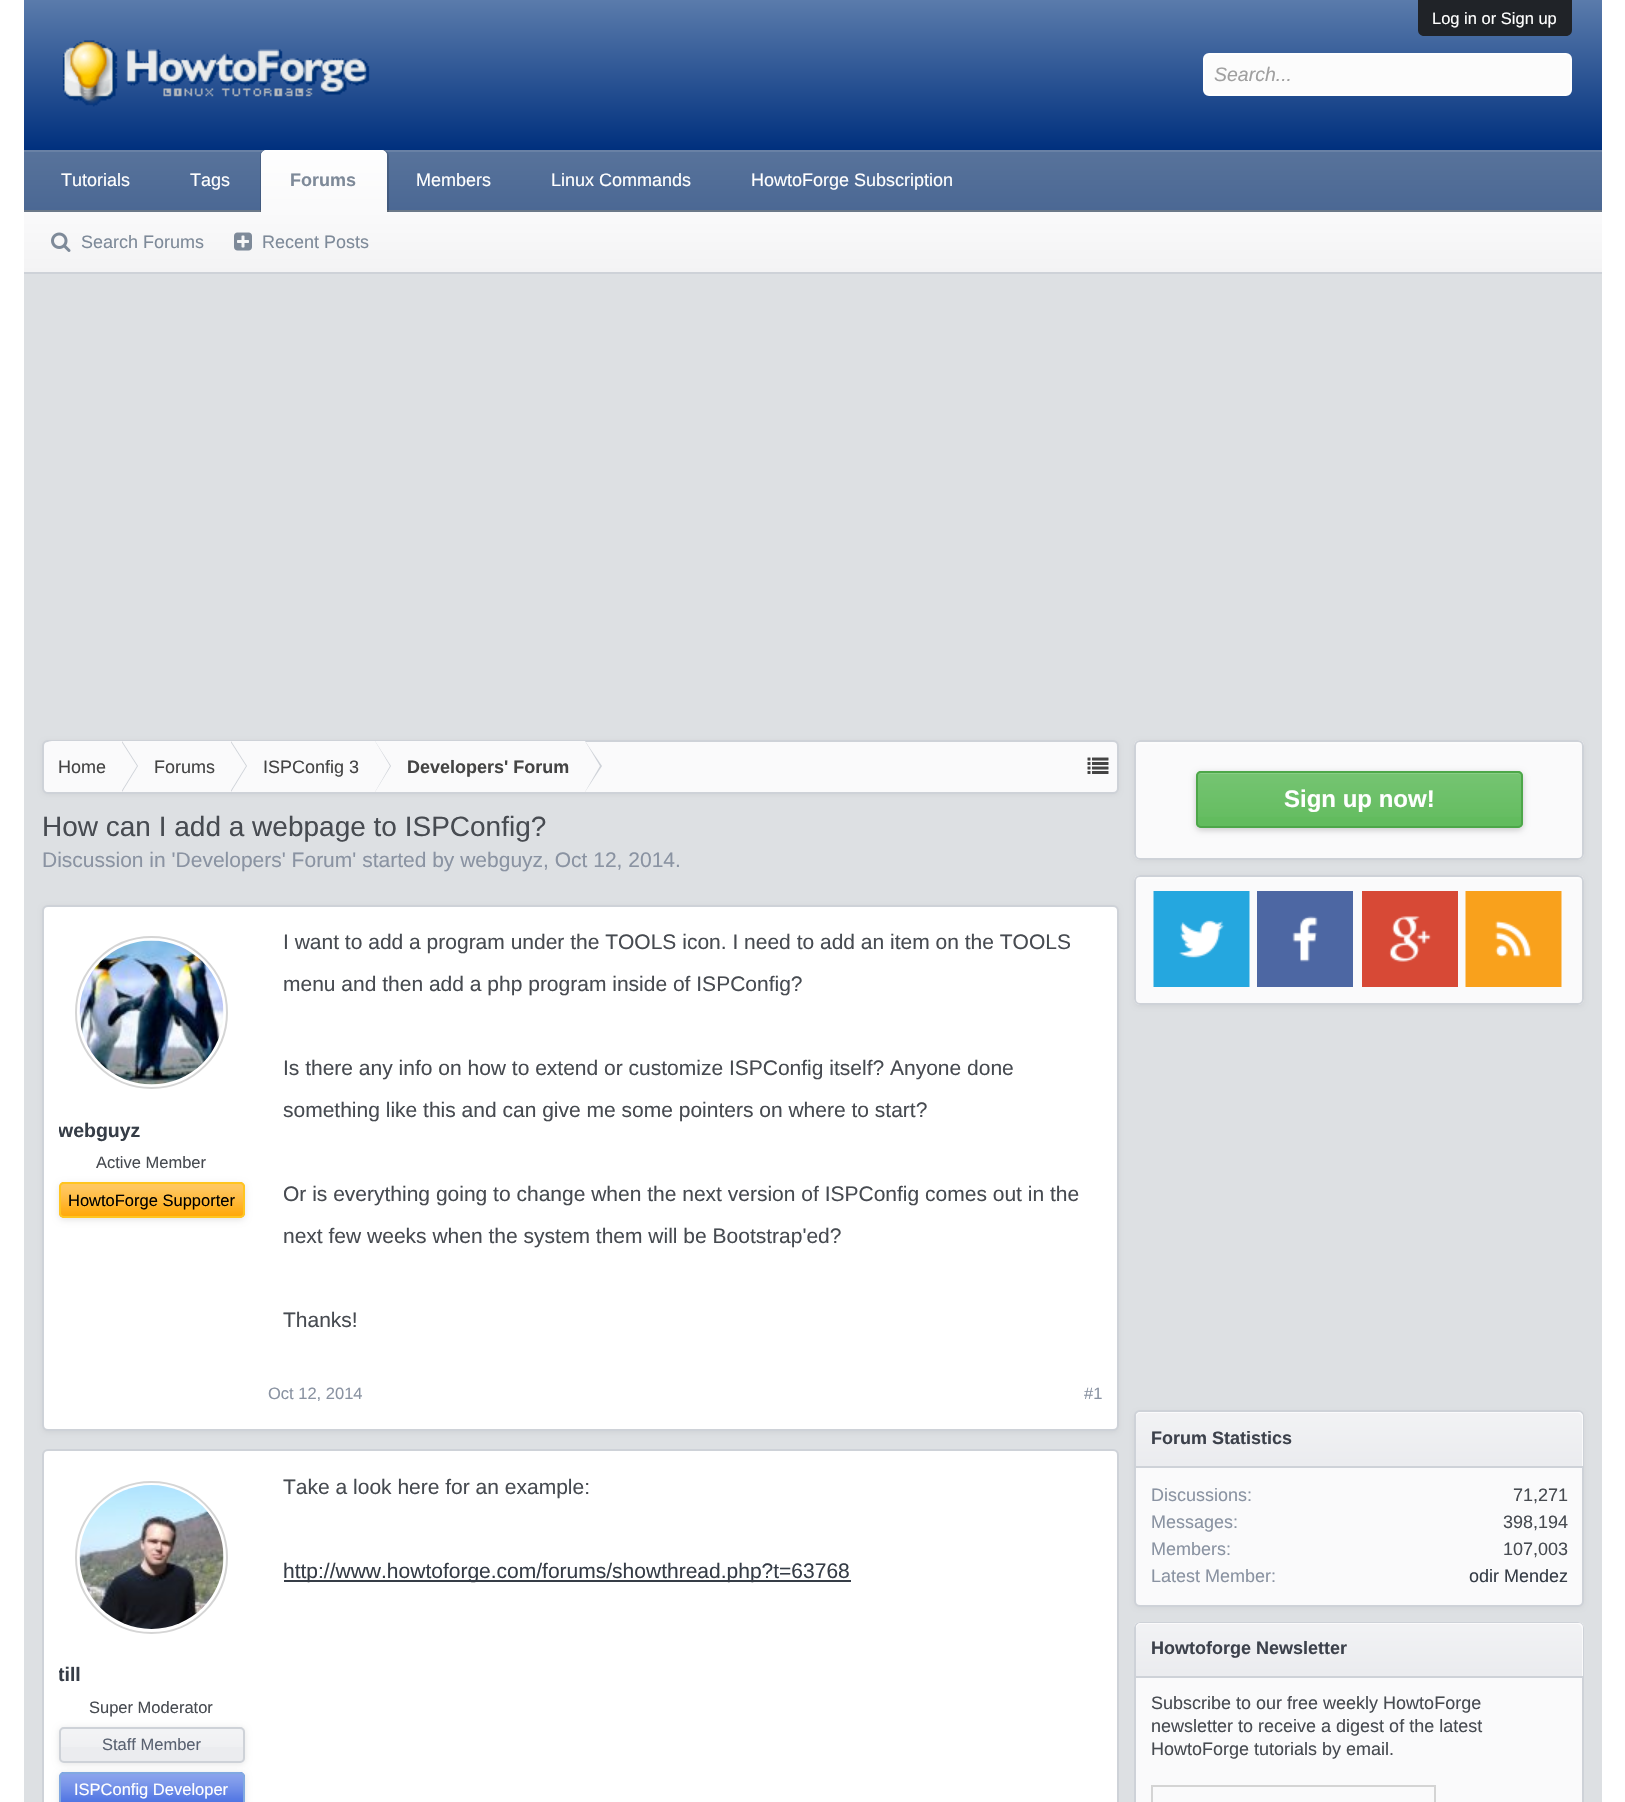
void draw(SkCanvas* canvas) {
    SkPaint paint;
    paint.setAntiAlias(true);
    canvas->clear(0xFFFFFFFF);
    {
        const SkColor colors[] = {0xFF5A7BAB, 0xFF00307E};
        const float stops[] = {0, 1};
        const SkPoint ends[] = {{813, 0}, {813, 150}};
        paint.setShader(SkGradientShader::MakeLinear(ends, colors, stops, 2, SkTileMode::kClamp));
        paint.setAlpha(255);
    }
    canvas->drawRect(SkRect::MakeXYWH(24, 0, 1578, 150), paint);
    paint.setShader(nullptr);
    paint.setColor(0xFF202328);
    canvas->drawPath(SkPathBuilder().moveTo(1418, 0).lineTo(1572, 0).lineTo(1572, 30).cubicTo(1572, 33.5f, 1569.5f, 36, 1566, 36).lineTo(1424, 36).cubicTo(1420.5f, 36, 1418, 33.5f, 1418, 30).close().detach(), paint);
    SkFont font1(fontMgr->matchFamilyStyle("Liberation Sans", SkFontStyle::Normal()), 16.5f);
    font1.setSubpixel(true);
    paint.setColor(0xFFFFFFFF);
    canvas->drawString("Log in or Sign up", 1432, 24, font1, paint);
    canvas->drawImageRect(SkImages::DeferredFromEncodedData(SkData::MakeFromFileName("img1.png")), SkRect::MakeXYWH(62, 40, 308, 67), SkSamplingOptions());
    paint.setColor(0xFFFCFCFC);
    canvas->drawRoundRect(SkRect::MakeXYWH(1204, 54, 367, 41), 5, 5, paint);
    paint.setStyle(SkPaint::kStroke_Style);
    paint.setStrokeWidth(2);
    paint.setColor(0xFFFFFFFF);
    canvas->drawRoundRect(SkRect::MakeXYWH(1204, 54, 367, 41), 5, 5, paint);
    SkFont font2(fontMgr->matchFamilyStyle("Liberation Sans", SkFontStyle::Italic()), 19.5f);
    font2.setSubpixel(true);
    paint.setStyle(SkPaint::kFill_Style);
    paint.setColor(0xFFA0A0A0);
    canvas->drawString("Search...", 1214, 81, font2, paint);
    {
        const SkColor colors[] = {0xFF58739B, 0xFF4B6894};
        const float stops[] = {0, 1};
        const SkPoint ends[] = {{813, 150}, {813, 210}};
        paint.setShader(SkGradientShader::MakeLinear(ends, colors, stops, 2, SkTileMode::kClamp));
        paint.setAlpha(255);
    }
    canvas->drawRect(SkRect::MakeXYWH(24, 152, 1578, 58), paint);
    paint.setShader(nullptr);
    paint.setColor(0xFF6981A5);
    canvas->drawRect(SkRect::MakeXYWH(24, 150, 1578, 2), paint);
    paint.setColor(0xFF6C7989);
    canvas->drawRect(SkRect::MakeXYWH(24, 210, 1578, 2), paint);
    SkFont font3(fontMgr->matchFamilyStyle("Liberation Sans", SkFontStyle::Normal()), 18);
    font3.setSubpixel(true);
    paint.setColor(0xFFFFFFFF);
    canvas->drawString("Tutorials", 61, 186, font3, paint);
    canvas->drawString("Members", 416, 186, font3, paint);
    canvas->drawString("Linux Commands", 551, 186, font3, paint);
    canvas->drawString("HowtoForge Subscription", 751, 186, font3, paint);
    paint.setColor(0x26000000);
    canvas->drawPath(SkPathBuilder().moveTo(266, 150).cubicTo(263, 150, 260, 153, 260, 156).lineTo(260, 212).lineTo(386, 212).lineTo(261, 212).lineTo(261, 156).cubicTo(261, 153, 264, 150, 267, 150).close().detach(), paint);
    canvas->drawPath(SkPathBuilder().moveTo(263, 212).lineTo(389, 212).lineTo(389, 156).cubicTo(389, 153, 386, 150, 383, 150).lineTo(381, 150).cubicTo(384, 150, 387, 153, 387, 156).lineTo(387, 212).close().detach(), paint);
    paint.setColor(0xFFFAFAFB);
    canvas->drawPath(SkPathBuilder().moveTo(267, 150).lineTo(381, 150).cubicTo(384.5f, 150, 387, 152.5f, 387, 156).lineTo(387, 212).lineTo(261, 212).lineTo(261, 156).cubicTo(261, 152.5f, 263.5f, 150, 267, 150).close().detach(), paint);
    {
        const SkColor colors[] = {0xCCFFFFFF, 0x00FFFFFF};
        const float stops[] = {0, 1};
        const SkPoint ends[] = {{324, 150}, {324, 212}};
        paint.setShader(SkGradientShader::MakeLinear(ends, colors, stops, 2, SkTileMode::kClamp));
        paint.setAlpha(255);
    }
    canvas->drawPath(SkPathBuilder().moveTo(267, 150).lineTo(381, 150).cubicTo(384.5f, 150, 387, 152.5f, 387, 156).lineTo(387, 212).lineTo(261, 212).lineTo(261, 156).cubicTo(261, 152.5f, 263.5f, 150, 267, 150).close().detach(), paint);
    paint.setShader(nullptr);
    paint.setColor(0xCCFFFFFF);
    canvas->drawPath(SkPathBuilder().moveTo(267, 152).lineTo(381, 152).cubicTo(384, 152, 387, 154, 387, 158).lineTo(387, 156).cubicTo(387, 153, 384, 150, 381, 150).lineTo(267, 150).cubicTo(264, 150, 261, 153, 261, 156).lineTo(261, 158).cubicTo(261, 154, 264, 152, 267, 152).close().detach(), paint);
    SkFont font4(fontMgr->matchFamilyStyle("Liberation Sans", SkFontStyle::Bold()), 18);
    font4.setSubpixel(true);
    paint.setColor(0xFF7E8A99);
    canvas->drawString("Forums", 290, 186, font4, paint);
    {
        const SkColor colors[] = {0xFFFAFAFB, 0xFFF3F3F4};
        const float stops[] = {0, 1};
        const SkPoint ends[] = {{813, 211}, {813, 272}};
        paint.setShader(SkGradientShader::MakeLinear(ends, colors, stops, 2, SkTileMode::kClamp));
        paint.setAlpha(255);
    }
    canvas->drawRect(SkRect::MakeXYWH(24, 212, 1578, 60), paint);
    paint.setShader(nullptr);
    paint.setColor(0xFFCED2D8);
    canvas->drawRect(SkRect::MakeXYWH(24, 272, 1578, 2), paint);
    canvas->drawImageRect(SkImages::DeferredFromEncodedData(SkData::MakeFromFileName("img2.png")), SkRect::MakeXYWH(51, 232, 20, 20), SkSamplingOptions());
    paint.setColor(0xFF7E8A99);
    canvas->drawString("Search Forums", 81, 248, font3, paint);
    canvas->drawImageRect(SkImages::DeferredFromEncodedData(SkData::MakeFromFileName("img3.png")), SkRect::MakeXYWH(234, 232, 18, 19), SkSamplingOptions());
    canvas->drawString("Recent Posts", 262, 248, font3, paint);
    paint.setColor(0xFFFFFFFF);
    canvas->drawString("Tags", 190, 186, font3, paint);
    paint.setColor(0xFFDDE0E3);
    canvas->drawRect(SkRect::MakeXYWH(24, 274, 1578, 1528), paint);
    paint.setColor(0x0D000000);
    paint.setMaskFilter(SkMaskFilter::MakeBlur(kNormal_SkBlurStyle, 2));
    canvas->drawRoundRect(SkRect::MakeXYWH(42, 741, 1077, 54), 6, 6, paint);
    paint.setMaskFilter(nullptr);
    paint.setColor(0xFFFAFAFB);
    canvas->drawRoundRect(SkRect::MakeXYWH(43, 741, 1075, 52), 5, 5, paint);
    paint.setStyle(SkPaint::kStroke_Style);
    paint.setColor(0xFFCED2D8);
    canvas->drawRoundRect(SkRect::MakeXYWH(43, 741, 1075, 52), 5, 5, paint);
    canvas->save();
    canvas->clipPath(SkPathBuilder().moveTo(49, 741).lineTo(1113, 741).cubicTo(1116, 741, 1118, 743, 1118, 746).lineTo(1118, 787).cubicTo(1118, 790, 1116, 792, 1113, 792).lineTo(49, 792).cubicTo(46, 792, 44, 790, 44, 787).lineTo(44, 746).cubicTo(44, 743, 46, 741, 49, 741).close().detach(), true);
    paint.setStyle(SkPaint::kFill_Style);
    paint.setColor(0xFFFAFAFB);
    canvas->drawPath(SkPathBuilder().moveTo(52, 741).lineTo(122, 741).lineTo(122, 794).lineTo(52, 794).cubicTo(47.5f, 794, 44, 790.5f, 44, 786).lineTo(44, 749).cubicTo(44, 744.5f, 47.5f, 741, 52, 741).close().detach(), paint);
    canvas->restore();
    paint.setColor(0xFF444444);
    canvas->drawString("Home", 58, 773, font3, paint);
    paint.setColor(0xFFFAFAFB);
    canvas->drawRect(SkRect::MakeXYWH(122, 741, 252, 1), paint);
    paint.setColor(0xFFCED2D8);
    canvas->drawPath(SkPathBuilder().moveTo(122, 792).lineTo(122, 741).lineTo(138, 766).close().detach(), paint);
    paint.setColor(0xFFFAFAFB);
    canvas->drawPath(SkPathBuilder().moveTo(121, 741).lineTo(137, 766).lineTo(121, 792).lineTo(120, 792).lineTo(120, 741).close().detach(), paint);
    paint.setColor(0xFF444444);
    canvas->drawString("Forums", 154, 773, font3, paint);
    paint.setColor(0xFFCED2D8);
    canvas->drawPath(SkPathBuilder().moveTo(231, 792).lineTo(231, 741).lineTo(247, 766).close().detach(), paint);
    paint.setColor(0xFFFAFAFB);
    canvas->drawPath(SkPathBuilder().moveTo(230, 741).lineTo(246, 766).lineTo(230, 792).lineTo(229, 792).lineTo(229, 741).close().detach(), paint);
    paint.setColor(0xFF444444);
    canvas->drawString("ISPConfig 3", 263, 773, font3, paint);
    paint.setColor(0xFFFAFAFB);
    canvas->drawRect(SkRect::MakeXYWH(375, 741, 209, 1), paint);
    paint.setColor(0xFFCED2D8);
    canvas->drawPath(SkPathBuilder().moveTo(375, 792).lineTo(375, 741).lineTo(391, 766).close().detach(), paint);
    paint.setColor(0xFFFAFAFB);
    canvas->drawPath(SkPathBuilder().moveTo(375, 741).lineTo(390, 766).lineTo(375, 792).lineTo(374, 792).lineTo(374, 741).close().detach(), paint);
    paint.setColor(0xFF444444);
    canvas->drawString("Developers' Forum", 407, 773, font4, paint);
    paint.setColor(0xFFCED2D8);
    canvas->drawPath(SkPathBuilder().moveTo(585, 792).lineTo(585, 741).lineTo(602, 766).close().detach(), paint);
    paint.setColor(0xFFFAFAFB);
    canvas->drawPath(SkPathBuilder().moveTo(585, 741).lineTo(600, 766).lineTo(585, 792).lineTo(584, 792).lineTo(584, 741).close().detach(), paint);
    canvas->drawImageRect(SkImages::DeferredFromEncodedData(SkData::MakeFromFileName("img4.png")), SkRect::MakeXYWH(1087, 757, 22, 17), SkSamplingOptions());
    SkFont font5(fontMgr->matchFamilyStyle("Liberation Sans", SkFontStyle::Normal()), 28);
    font5.setSubpixel(true);
    paint.setColor(0xFF474B51);
    canvas->drawString("How can I add a webpage to ISPConfig?", 42, 836, font5, paint);
    SkFont font6(fontMgr->matchFamilyStyle("Liberation Sans", SkFontStyle::Normal()), 21);
    font6.setSubpixel(true);
    paint.setColor(0xFF8A93A2);
    canvas->drawString("Discussion in 'Developers' Forum' started by webguyz, Oct 12, 2014.", 42, 867, font6, paint);
    paint.setColor(0x0D000000);
    paint.setMaskFilter(SkMaskFilter::MakeBlur(kNormal_SkBlurStyle, 2));
    canvas->drawRoundRect(SkRect::MakeXYWH(42, 906, 1077, 527), 6, 6, paint);
    paint.setMaskFilter(nullptr);
    paint.setColor(0xFFFFFFFF);
    canvas->drawRoundRect(SkRect::MakeXYWH(43, 906, 1075, 524), 5, 5, paint);
    paint.setStyle(SkPaint::kStroke_Style);
    paint.setColor(0xFFCED2D8);
    canvas->drawRoundRect(SkRect::MakeXYWH(43, 906, 1075, 524), 5, 5, paint);
    paint.setColor(0xFFD5D5D5);
    canvas->drawCircle(151.5f, 1012.5f, 75.5f, paint);
    canvas->drawImageRect(SkImages::DeferredFromEncodedData(SkData::MakeFromFileName("img5.png")), SkRect::MakeXYWH(79, 940, 145, 145), SkSamplingOptions());
    canvas->save();
    canvas->clipRect(SkRect::MakeXYWH(59, 1116, 186, 30));
    SkFont font7(fontMgr->matchFamilyStyle("Liberation Sans", SkFontStyle::Bold()), 19.5f);
    font7.setSubpixel(true);
    paint.setStyle(SkPaint::kFill_Style);
    paint.setColor(0xFF363D47);
    canvas->drawString("webguyz", 58, 1137, font7, paint);
    canvas->restore();
    paint.setColor(0xFF474B51);
    canvas->drawString("Active Member", 96, 1168, font1, paint);
    paint.setColor(0x1A000000);
    paint.setMaskFilter(SkMaskFilter::MakeBlur(kNormal_SkBlurStyle, 3));
    canvas->drawRoundRect(SkRect::MakeXYWH(59, 1184, 186, 36), 5, 5, paint);
    paint.setMaskFilter(nullptr);
    paint.setColor(0xFFFFA500);
    canvas->drawRoundRect(SkRect::MakeXYWH(59, 1182, 186, 36), 5, 5, paint);
    canvas->drawImageRect(SkImages::DeferredFromEncodedData(SkData::MakeFromFileName("img6.png")), SkRect::MakeXYWH(59, 1183, 186, 35), SkSamplingOptions());
    paint.setStyle(SkPaint::kStroke_Style);
    paint.setColor(0xFFFFC520);
    canvas->drawRoundRect(SkRect::MakeXYWH(60, 1183, 184, 34), 4, 4, paint);
    paint.setStyle(SkPaint::kFill_Style);
    paint.setColor(0xFF000000);
    canvas->drawString("HowtoForge Supporter", 68, 1206, font1, paint);
    paint.setColor(0xFF474B51);
    canvas->drawString("I want to add a program under the TOOLS icon. I need to add an item on the TOOLS", 283, 949, font6, paint);
    canvas->drawString("menu and then add a php program inside of ISPConfig?", 283, 991, font6, paint);
    canvas->drawString("Is there any info on how to extend or customize ISPConfig itself? Anyone done", 283, 1075, font6, paint);
    canvas->drawString("something like this and can give me some pointers on where to start?", 283, 1117, font6, paint);
    canvas->drawString("Or is everything going to change when the next version of ISPConfig comes out in the", 283, 1201, font6, paint);
    canvas->drawString("next few weeks when the system them will be Bootstrap'ed?", 283, 1243, font6, paint);
    canvas->drawString("Thanks!", 283, 1327, font6, paint);
    paint.setColor(0xFF8A93A2);
    canvas->drawString("Oct 12, 2014", 268, 1399, font1, paint);
    canvas->drawString("#1", 1084, 1399, font1, paint);
    paint.setColor(0xFFFFFFFF);
    canvas->drawRoundRect(SkRect::MakeXYWH(43, 1450, 1075, 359), 5, 5, paint);
    paint.setStyle(SkPaint::kStroke_Style);
    paint.setColor(0xFFCED2D8);
    canvas->drawRoundRect(SkRect::MakeXYWH(43, 1450, 1075, 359), 5, 5, paint);
    paint.setStyle(SkPaint::kFill_Style);
    paint.setColor(0xFF474B51);
    canvas->drawString("Take a look here for an example:", 283, 1494, font6, paint);
    paint.setColor(0xFF363D47);
    canvas->drawRect(SkRect::MakeXYWH(284, 1580, 567, 2), paint);
    canvas->drawString("http://www.howtoforge.com/forums/showthread.php?t=63768", 283, 1578, font6, paint);
    paint.setStyle(SkPaint::kStroke_Style);
    paint.setColor(0xFFD5D5D5);
    canvas->drawCircle(151.5f, 1557.5f, 75.5f, paint);
    canvas->drawImageRect(SkImages::DeferredFromEncodedData(SkData::MakeFromFileName("img7.png")), SkRect::MakeXYWH(79, 1485, 145, 144), SkSamplingOptions());
    canvas->save();
    canvas->clipRect(SkRect::MakeXYWH(59, 1661, 186, 30));
    paint.setStyle(SkPaint::kFill_Style);
    paint.setColor(0xFF363D47);
    canvas->drawString("till", 58, 1681, font7, paint);
    canvas->restore();
    paint.setColor(0xFF474B51);
    canvas->drawString("Super Moderator", 89, 1713, font1, paint);
    paint.setColor(0x1A000000);
    paint.setMaskFilter(SkMaskFilter::MakeBlur(kNormal_SkBlurStyle, 3));
    canvas->drawRoundRect(SkRect::MakeXYWH(59, 1728, 186, 36), 5, 5, paint);
    paint.setMaskFilter(nullptr);
    paint.setColor(0xFFEBECEF);
    canvas->drawRoundRect(SkRect::MakeXYWH(59, 1727, 186, 36), 5, 5, paint);
    canvas->drawImageRect(SkImages::DeferredFromEncodedData(SkData::MakeFromFileName("img8.png")), SkRect::MakeXYWH(59, 1728, 185, 19), SkSamplingOptions());
    paint.setStyle(SkPaint::kStroke_Style);
    paint.setColor(0xFFCED2D8);
    canvas->drawRoundRect(SkRect::MakeXYWH(60, 1728, 184, 34), 4, 4, paint);
    paint.setStyle(SkPaint::kFill_Style);
    paint.setColor(0xFF5A6271);
    canvas->drawString("Staff Member", 102, 1750, font1, paint);
    paint.setColor(0x1A000000);
    paint.setMaskFilter(SkMaskFilter::MakeBlur(kNormal_SkBlurStyle, 3));
    canvas->drawRoundRect(SkRect::MakeXYWH(59, 1773, 186, 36), 5, 5, paint);
    paint.setMaskFilter(nullptr);
    paint.setColor(0xFF4169E1);
    canvas->drawRoundRect(SkRect::MakeXYWH(59, 1772, 186, 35), 5, 5, paint);
    canvas->drawImageRect(SkImages::DeferredFromEncodedData(SkData::MakeFromFileName("img9.png")), SkRect::MakeXYWH(59, 1773, 186, 29), SkSamplingOptions());
    paint.setStyle(SkPaint::kStroke_Style);
    paint.setColor(0xFF81A9E1);
    canvas->drawRoundRect(SkRect::MakeXYWH(60, 1773, 184, 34), 4, 4, paint);
    paint.setStyle(SkPaint::kFill_Style);
    paint.setColor(0xFFFFFFFF);
    canvas->drawString("ISPConfig Developer", 74, 1795, font1, paint);
    paint.setColor(0x0D000000);
    paint.setMaskFilter(SkMaskFilter::MakeBlur(kNormal_SkBlurStyle, 2));
    canvas->drawRoundRect(SkRect::MakeXYWH(1134, 741, 450, 120), 6, 6, paint);
    paint.setMaskFilter(nullptr);
    paint.setColor(0xFFFAFAFB);
    canvas->drawRoundRect(SkRect::MakeXYWH(1134, 740, 450, 120), 6, 6, paint);
    canvas->drawImageRect(SkImages::DeferredFromEncodedData(SkData::MakeFromFileName("img10.png")), SkRect::MakeXYWH(1134, 741, 450, 3), SkSamplingOptions());
    paint.setStyle(SkPaint::kStroke_Style);
    paint.setColor(0xFFCED2D8);
    canvas->drawRoundRect(SkRect::MakeXYWH(1135, 741, 448, 118), 5, 5, paint);
    paint.setStyle(SkPaint::kFill_Style);
    paint.setColor(0x33000000);
    paint.setMaskFilter(SkMaskFilter::MakeBlur(kNormal_SkBlurStyle, 3));
    canvas->drawRoundRect(SkRect::MakeXYWH(1196, 773, 327, 57), 5, 5, paint);
    paint.setMaskFilter(nullptr);
    paint.setColor(0xFF62BC5E);
    canvas->drawRoundRect(SkRect::MakeXYWH(1196, 771, 327, 57), 5, 5, paint);
    {
        const SkColor colors[] = {0x1FFFFFFF, 0x00FFFFFF};
        const float stops[] = {0, 1};
        const SkPoint ends[] = {{1359, 773}, {1359, 827}};
        paint.setShader(SkGradientShader::MakeLinear(ends, colors, stops, 2, SkTileMode::kClamp));
        paint.setAlpha(255);
    }
    canvas->drawRect(SkRect::MakeXYWH(1196, 773, 327, 44), paint);
    paint.setShader(nullptr);
    paint.setColor(0xFF89CD86);
    canvas->drawPath(SkPathBuilder().moveTo(1200, 774).lineTo(1518, 774).cubicTo(1520, 774, 1521, 775, 1521, 777).cubicTo(1521, 775, 1520, 773, 1518, 773).lineTo(1200, 773).cubicTo(1198, 773, 1197, 775, 1197, 777).cubicTo(1197, 775, 1198, 774, 1200, 774).close().detach(), paint);
    paint.setStyle(SkPaint::kStroke_Style);
    paint.setColor(0xFF4DA749);
    canvas->drawRoundRect(SkRect::MakeXYWH(1197, 772, 325, 55), 4, 4, paint);
    SkFont font8(fontMgr->matchFamilyStyle("Liberation Sans", SkFontStyle::Bold()), 24);
    font8.setSubpixel(true);
    paint.setStyle(SkPaint::kFill_Style);
    paint.setColor(0xFFFFFFFF);
    canvas->drawString("Sign up now!", 1284, 807, font8, paint);
    paint.setColor(0x0D000000);
    paint.setMaskFilter(SkMaskFilter::MakeBlur(kNormal_SkBlurStyle, 2));
    canvas->drawRoundRect(SkRect::MakeXYWH(1134, 876, 450, 131), 6, 6, paint);
    paint.setMaskFilter(nullptr);
    paint.setColor(0xFFFAFAFB);
    canvas->drawRoundRect(SkRect::MakeXYWH(1134, 875, 450, 130), 6, 6, paint);
    canvas->drawImageRect(SkImages::DeferredFromEncodedData(SkData::MakeFromFileName("img10.png")), SkRect::MakeXYWH(1134, 876, 450, 3), SkSamplingOptions());
    paint.setStyle(SkPaint::kStroke_Style);
    paint.setColor(0xFFCED2D8);
    canvas->drawRoundRect(SkRect::MakeXYWH(1135, 876, 448, 128), 5, 5, paint);
    canvas->drawImageRect(SkImages::DeferredFromEncodedData(SkData::MakeFromFileName("img11.png")), SkRect::MakeXYWH(1153, 891, 97, 96), SkSamplingOptions());
    canvas->drawImageRect(SkImages::DeferredFromEncodedData(SkData::MakeFromFileName("img12.png")), SkRect::MakeXYWH(1257, 891, 96, 96), SkSamplingOptions());
    canvas->drawImageRect(SkImages::DeferredFromEncodedData(SkData::MakeFromFileName("img13.png")), SkRect::MakeXYWH(1362, 891, 96, 96), SkSamplingOptions());
    canvas->drawImageRect(SkImages::DeferredFromEncodedData(SkData::MakeFromFileName("img14.png")), SkRect::MakeXYWH(1465, 891, 97, 96), SkSamplingOptions());
    paint.setStyle(SkPaint::kFill_Style);
    paint.setColor(0x0D000000);
    paint.setMaskFilter(SkMaskFilter::MakeBlur(kNormal_SkBlurStyle, 2));
    canvas->drawRoundRect(SkRect::MakeXYWH(1134, 1412, 450, 196), 6, 6, paint);
    paint.setMaskFilter(nullptr);
    paint.setColor(0xFFFAFAFB);
    canvas->drawRoundRect(SkRect::MakeXYWH(1135, 1411, 448, 195), 5, 5, paint);
    paint.setStyle(SkPaint::kStroke_Style);
    paint.setColor(0xFFCED2D8);
    canvas->drawRoundRect(SkRect::MakeXYWH(1135, 1411, 448, 195), 5, 5, paint);
    paint.setStyle(SkPaint::kFill_Style);
    paint.setColor(0xFFEBECEF);
    canvas->drawPath(SkPathBuilder().moveTo(1141, 1412).lineTo(1578, 1412).cubicTo(1581, 1412, 1583, 1414, 1583, 1417).lineTo(1583, 1467).lineTo(1136, 1467).lineTo(1136, 1417).cubicTo(1136, 1414, 1138, 1412, 1141, 1412).close().detach(), paint);
    {
        const SkColor colors[] = {0x59FFFFFF, 0x00FFFFFF};
        const float stops[] = {0, 1};
        const SkPoint ends[] = {{1359, 1412}, {1359, 1466}};
        paint.setShader(SkGradientShader::MakeLinear(ends, colors, stops, 2, SkTileMode::kClamp));
        paint.setAlpha(255);
    }
    canvas->drawPath(SkPathBuilder().moveTo(1141, 1412).lineTo(1578, 1412).cubicTo(1581, 1412, 1583, 1414, 1583, 1417).lineTo(1583, 1466).lineTo(1136, 1466).lineTo(1136, 1417).cubicTo(1136, 1414, 1138, 1412, 1141, 1412).close().detach(), paint);
    paint.setShader(nullptr);
    paint.setColor(0xB3FFFFFF);
    canvas->drawPath(SkPathBuilder().moveTo(1140, 1413).lineTo(1578, 1413).cubicTo(1580, 1413, 1582, 1415, 1582, 1418).lineTo(1582, 1466).lineTo(1583, 1466).lineTo(1583, 1417).cubicTo(1583, 1414, 1581, 1412, 1578, 1412).lineTo(1141, 1412).cubicTo(1138, 1412, 1136, 1414, 1136, 1417).lineTo(1136, 1418).cubicTo(1136, 1415, 1138, 1413, 1140, 1413).close().detach(), paint);
    paint.setColor(0xFFCED2D8);
    canvas->drawRect(SkRect::MakeXYWH(1136, 1466, 447, 2), paint);
    paint.setColor(0xFF3C414B);
    canvas->drawString("Forum Statistics", 1151, 1444, font4, paint);
    paint.setColor(0xFF8A93A2);
    canvas->drawString("Discussions:", 1151, 1501, font3, paint);
    paint.setColor(0xFF474B51);
    canvas->drawString("71,271", 1513, 1501, font3, paint);
    paint.setColor(0xFF8A93A2);
    canvas->drawString("Messages:", 1151, 1528, font3, paint);
    paint.setColor(0xFF474B51);
    canvas->drawString("398,194", 1503, 1528, font3, paint);
    paint.setColor(0xFF8A93A2);
    canvas->drawString("Members:", 1151, 1555, font3, paint);
    paint.setColor(0xFF474B51);
    canvas->drawString("107,003", 1503, 1555, font3, paint);
    paint.setColor(0xFF8A93A2);
    canvas->drawString("Latest Member:", 1151, 1582, font3, paint);
    paint.setColor(0xFF363D47);
    canvas->drawString("odir Mendez", 1469, 1582, font3, paint);
    paint.setColor(0xFFFAFAFB);
    canvas->drawRoundRect(SkRect::MakeXYWH(1134, 1622, 450, 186), 6, 6, paint);
    canvas->drawImageRect(SkImages::DeferredFromEncodedData(SkData::MakeFromFileName("img10.png")), SkRect::MakeXYWH(1134, 1623, 450, 3), SkSamplingOptions());
    paint.setStyle(SkPaint::kStroke_Style);
    paint.setColor(0xFFCED2D8);
    canvas->drawRoundRect(SkRect::MakeXYWH(1135, 1623, 448, 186), 5, 5, paint);
    paint.setStyle(SkPaint::kFill_Style);
    paint.setColor(0xFFEBECEF);
    canvas->drawPath(SkPathBuilder().moveTo(1141, 1623).lineTo(1578, 1623).cubicTo(1581, 1623, 1583, 1625, 1583, 1628).lineTo(1583, 1677).lineTo(1136, 1677).lineTo(1136, 1628).cubicTo(1136, 1625, 1138, 1623, 1141, 1623).close().detach(), paint);
    {
        const SkColor colors[] = {0x59FFFFFF, 0x00FFFFFF};
        const float stops[] = {0, 1};
        const SkPoint ends[] = {{1359, 1623}, {1359, 1676}};
        paint.setShader(SkGradientShader::MakeLinear(ends, colors, stops, 2, SkTileMode::kClamp));
        paint.setAlpha(255);
    }
    canvas->drawPath(SkPathBuilder().moveTo(1141, 1623).lineTo(1578, 1623).cubicTo(1581, 1623, 1583, 1625, 1583, 1628).lineTo(1583, 1676).lineTo(1136, 1676).lineTo(1136, 1628).cubicTo(1136, 1625, 1138, 1623, 1141, 1623).close().detach(), paint);
    paint.setShader(nullptr);
    paint.setColor(0xB3FFFFFF);
    canvas->drawPath(SkPathBuilder().moveTo(1140, 1624).lineTo(1578, 1624).cubicTo(1580, 1624, 1582, 1627, 1582, 1629).lineTo(1582, 1676).lineTo(1583, 1676).lineTo(1583, 1628).cubicTo(1583, 1625, 1581, 1623, 1578, 1623).lineTo(1141, 1623).cubicTo(1138, 1623, 1136, 1625, 1136, 1628).lineTo(1136, 1629).cubicTo(1136, 1627, 1138, 1624, 1140, 1624).close().detach(), paint);
    paint.setColor(0xFFCED2D8);
    canvas->drawRect(SkRect::MakeXYWH(1136, 1676, 447, 2), paint);
    paint.setColor(0xFF3C414B);
    canvas->drawString("Howtoforge Newsletter", 1151, 1654, font4, paint);
    paint.setColor(0xFF474B51);
    canvas->drawString("Subscribe to our free weekly HowtoForge", 1151, 1709, font3, paint);
    canvas->drawString("newsletter to receive a digest of the latest", 1151, 1732, font3, paint);
    canvas->drawString("HowtoForge tutorials by email.", 1151, 1755, font3, paint);
    paint.setStyle(SkPaint::kStroke_Style);
    paint.setColor(0xFFD4D4D4);
    canvas->drawRect(SkRect::MakeXYWH(1152, 1786, 283, 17), paint);
}
